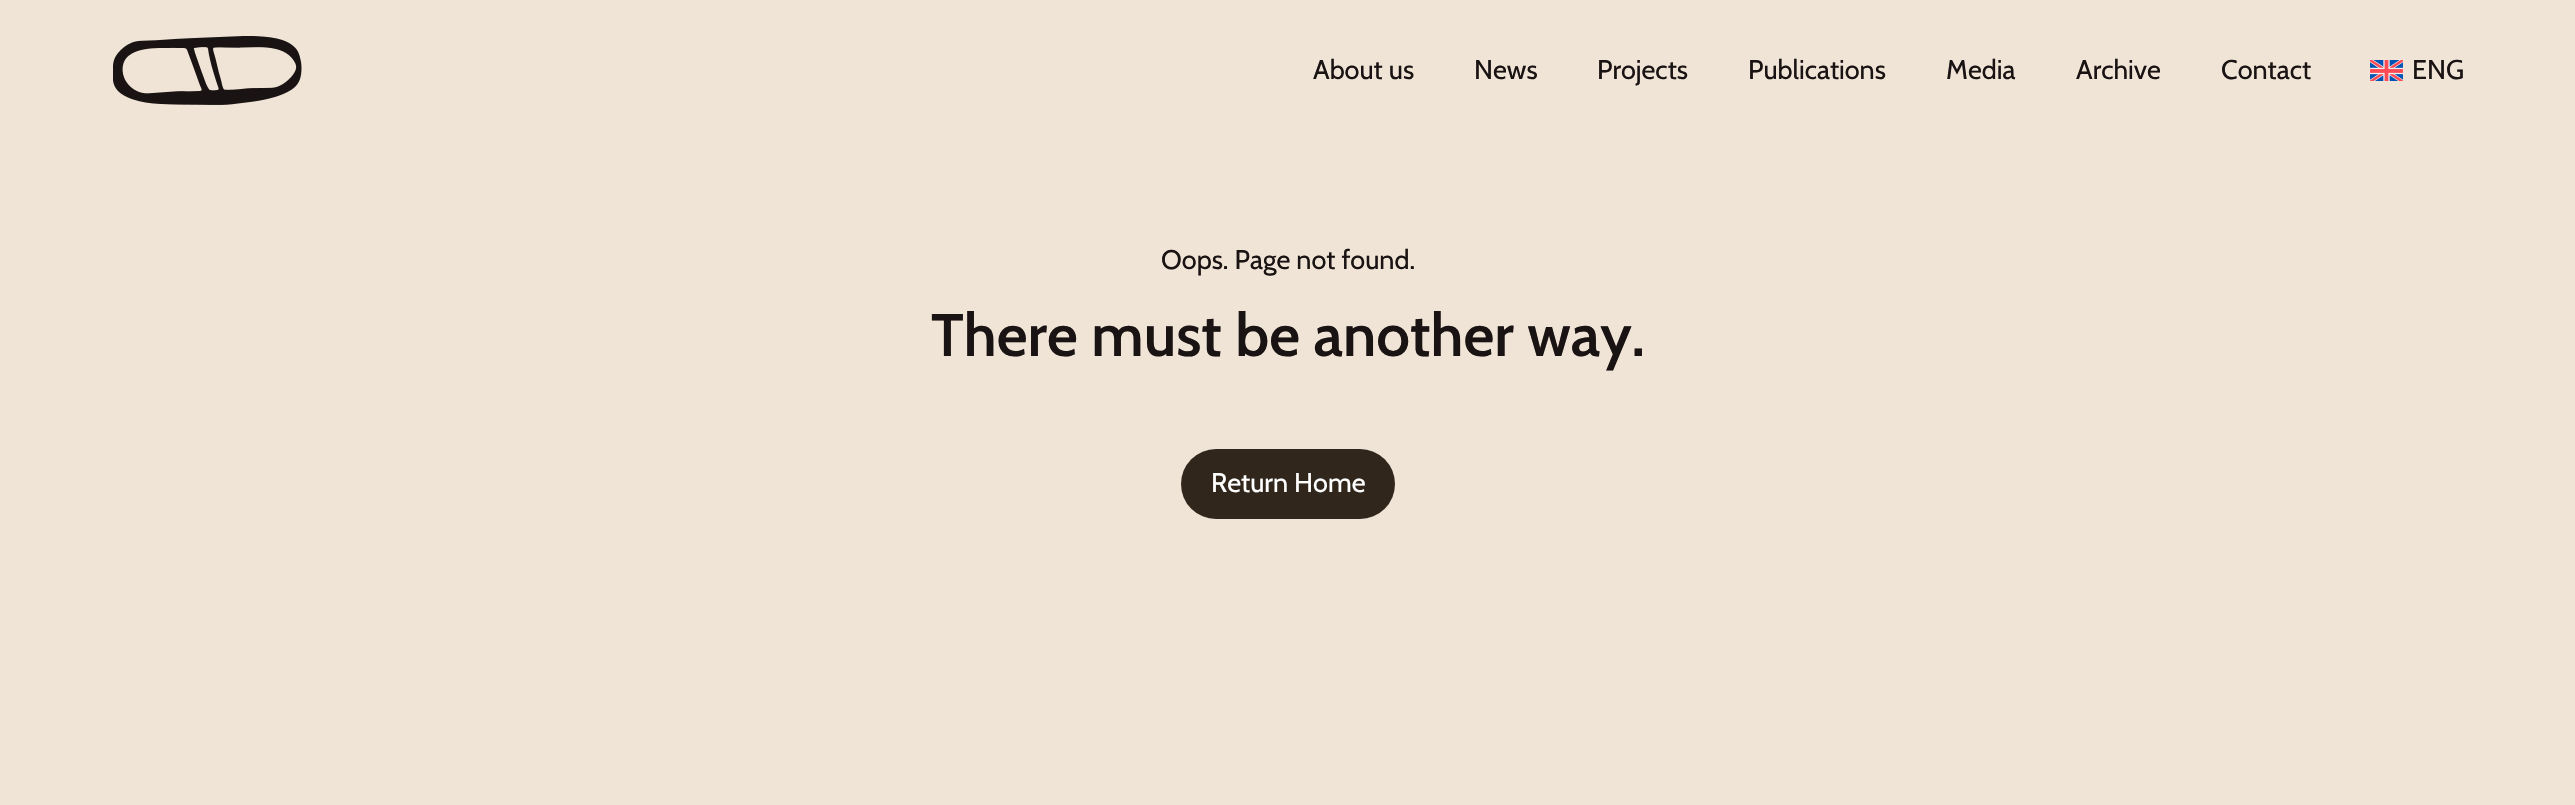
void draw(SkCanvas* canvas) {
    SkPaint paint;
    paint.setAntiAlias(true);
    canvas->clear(0xFFF0E4D6);
    canvas->drawImageRect(SkImages::DeferredFromEncodedData(SkData::MakeFromFileName("img1.png")), SkRect::MakeXYWH(113, 36, 189, 69), SkSamplingOptions());
    SkFont font1(fontMgr->matchFamilyStyle("Cabin", SkFontStyle::Normal()), 27);
    font1.setSubpixel(true);
    paint.setColor(0xFF1A1313);
    canvas->drawString("About us", 1313, 79, font1, paint);
    canvas->drawString("News", 1474, 79, font1, paint);
    canvas->drawString("Projects", 1597, 79, font1, paint);
    canvas->drawString("Publications", 1748, 79, font1, paint);
    canvas->drawString("Media", 1946, 79, font1, paint);
    canvas->drawString("Archive", 2076, 79, font1, paint);
    canvas->drawString("Contact", 2221, 79, font1, paint);
    canvas->drawImageRect(SkImages::DeferredFromEncodedData(SkData::MakeFromFileName("img2.png")), SkRect::MakeXYWH(2370, 60, 33, 21), SkSamplingOptions());
    canvas->drawString("ENG", 2412, 79, font1, paint);
    canvas->drawString("Oops. Page not found.", 1161, 269, font1, paint);
    SkFont font2(fontMgr->matchFamilyStyle("Cabin", SkFontStyle(600, SkFontStyle::kNormal_Width, SkFontStyle::kUpright_Slant)), 60);
    font2.setSubpixel(true);
    canvas->drawString("There must be another way.", 931, 356, font2, paint);
    paint.setColor(0xFF30261B);
    canvas->drawRoundRect(SkRect::MakeXYWH(1181, 449, 214, 70), 35, 35, paint);
    paint.setColor(0xFFFFFFFF);
    canvas->drawString("Return Home", 1211, 492, font1, paint);
}
